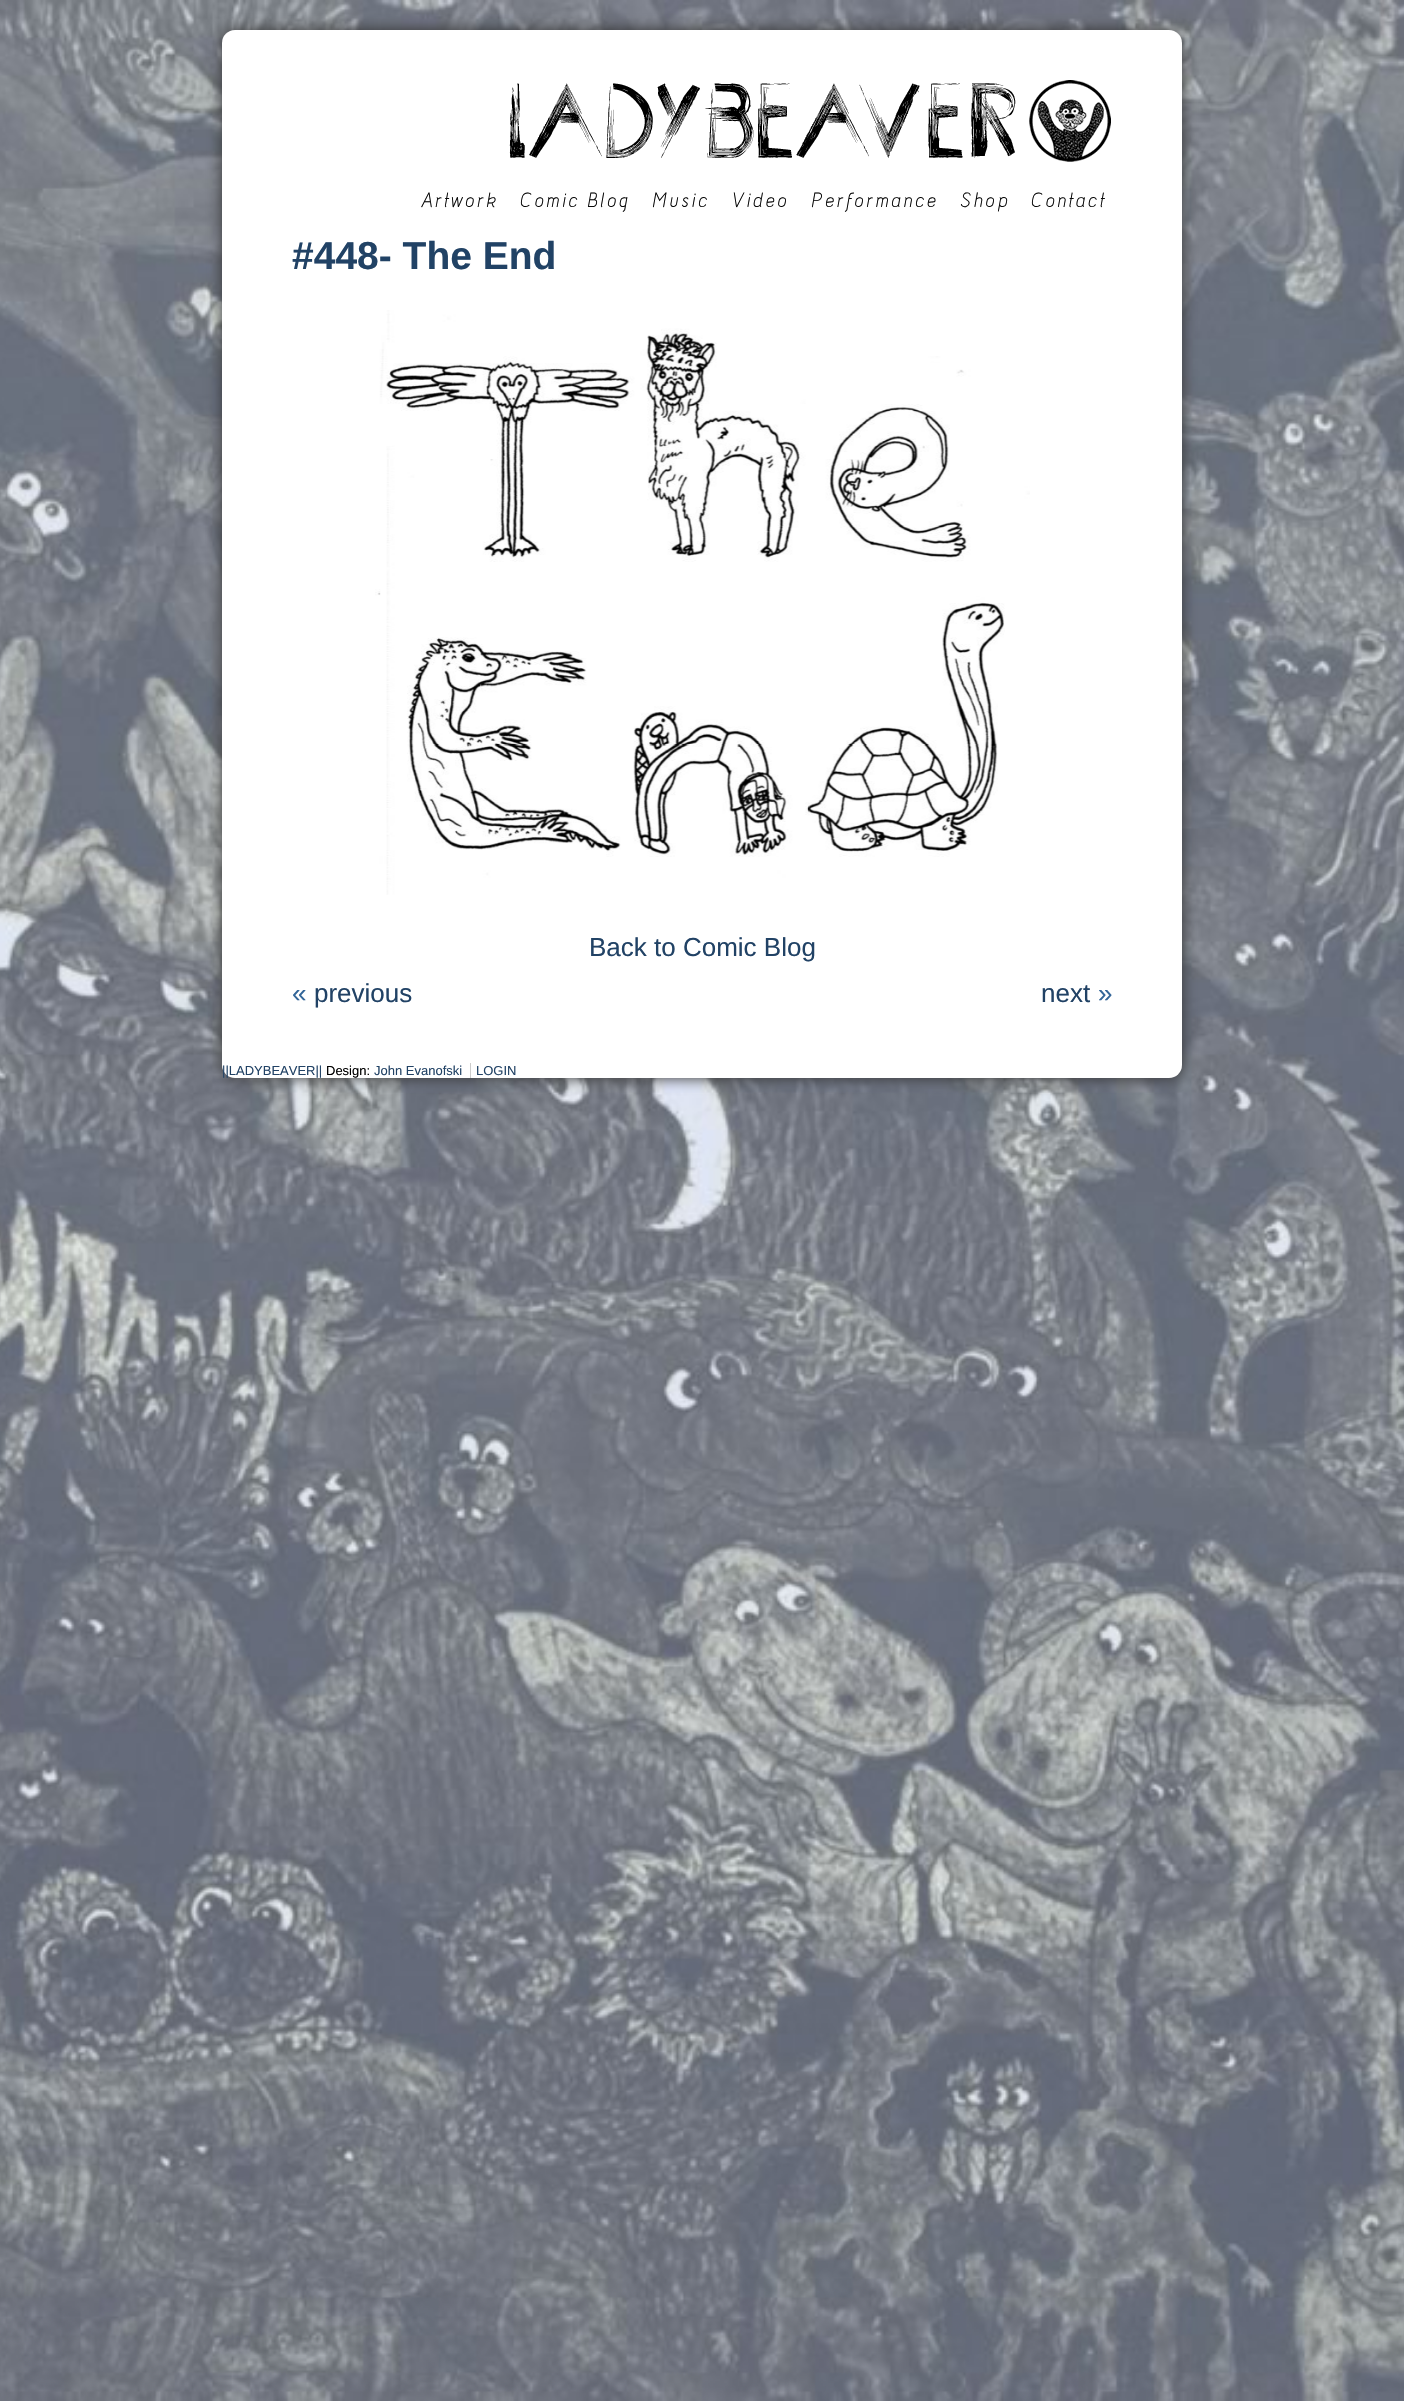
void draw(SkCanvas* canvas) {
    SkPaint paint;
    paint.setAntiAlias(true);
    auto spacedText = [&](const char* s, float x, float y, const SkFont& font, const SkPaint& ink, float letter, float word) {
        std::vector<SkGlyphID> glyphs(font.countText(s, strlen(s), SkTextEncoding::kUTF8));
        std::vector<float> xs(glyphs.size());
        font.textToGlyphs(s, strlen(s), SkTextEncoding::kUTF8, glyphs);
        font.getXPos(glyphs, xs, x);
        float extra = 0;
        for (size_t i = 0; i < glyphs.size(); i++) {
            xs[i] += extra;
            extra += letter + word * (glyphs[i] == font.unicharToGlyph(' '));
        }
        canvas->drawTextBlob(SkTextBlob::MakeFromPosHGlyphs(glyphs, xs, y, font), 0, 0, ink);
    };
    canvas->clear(0xFFFFFFFF);
    canvas->drawImageRect(SkImages::DeferredFromEncodedData(SkData::MakeFromFileName("img1.png")), SkRect::MakeXYWH(0, 0, 1404, 2401), SkSamplingOptions());
    paint.setColor(0xFF333333);
    paint.setMaskFilter(SkMaskFilter::MakeBlur(kNormal_SkBlurStyle, 7.5f));
    canvas->drawRoundRect(SkRect::MakeXYWH(222, 30, 960, 1048), 13, 13, paint);
    paint.setMaskFilter(nullptr);
    paint.setColor(0xFFFFFFFF);
    canvas->drawRoundRect(SkRect::MakeXYWH(222, 30, 960, 1048), 13, 13, paint);
    canvas->drawImageRect(SkImages::DeferredFromEncodedData(SkData::MakeFromFileName("img2.png")), SkRect::MakeXYWH(509, 80, 602, 82), SkSamplingOptions());
    SkFont font1(fontMgr->matchFamilyStyle("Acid", SkFontStyle::Italic()), 26);
    font1.setSubpixel(true);
    paint.setColor(0xFF090909);
    spacedText("Artwork", 421, 207, font1, paint, 2, 0);
    spacedText("Comic Blog", 520, 207, font1, paint, 2, 0);
    spacedText("Music", 652, 207, font1, paint, 2, 0);
    spacedText("Video", 732, 207, font1, paint, 2, 0);
    spacedText("Performance", 811, 207, font1, paint, 2, 0);
    spacedText("Shop", 960, 207, font1, paint, 2, 0);
    spacedText("Contact", 1031, 207, font1, paint, 2, 0);
    SkFont font2(fontMgr->matchFamilyStyle("Liberation Sans", SkFontStyle::Bold()), 39);
    font2.setSubpixel(true);
    paint.setColor(0xFF214265);
    canvas->drawString("#448- The End", 292, 269, font2, paint);
    canvas->drawImageRect(SkImages::DeferredFromEncodedData(SkData::MakeFromFileName("img3.png")), SkRect::MakeXYWH(375, 310, 655, 585), SkSamplingOptions());
    SkFont font3(fontMgr->matchFamilyStyle("Liberation Sans", SkFontStyle::Normal()), 26);
    font3.setSubpixel(true);
    canvas->drawString("Back to Comic Blog", 589, 956, font3, paint);
    paint.setColor(0xFF336699);
    canvas->drawString("«", 292, 1002, font3, paint);
    paint.setColor(0xFF214265);
    canvas->drawString("previous", 314, 1002, font3, paint);
    canvas->drawString("next", 1041, 1002, font3, paint);
    paint.setColor(0xFF336699);
    canvas->drawString("»", 1098, 1002, font3, paint);
    SkFont font4(fontMgr->matchFamilyStyle("Liberation Sans", SkFontStyle::Normal()), 13);
    font4.setSubpixel(true);
    paint.setColor(0xFF214265);
    canvas->drawString("||LADYBEAVER||", 222, 1075, font4, paint);
    paint.setColor(0xFF000000);
    canvas->drawString("Design:", 326, 1075, font4, paint);
    paint.setColor(0xFF214265);
    canvas->drawString("John Evanofski", 374, 1075, font4, paint);
    canvas->drawString("LOGIN", 476, 1075, font4, paint);
    paint.setColor(0xFFCCCCCC);
    canvas->drawRect(SkRect::MakeXYWH(470, 1063, 1, 15), paint);
}
